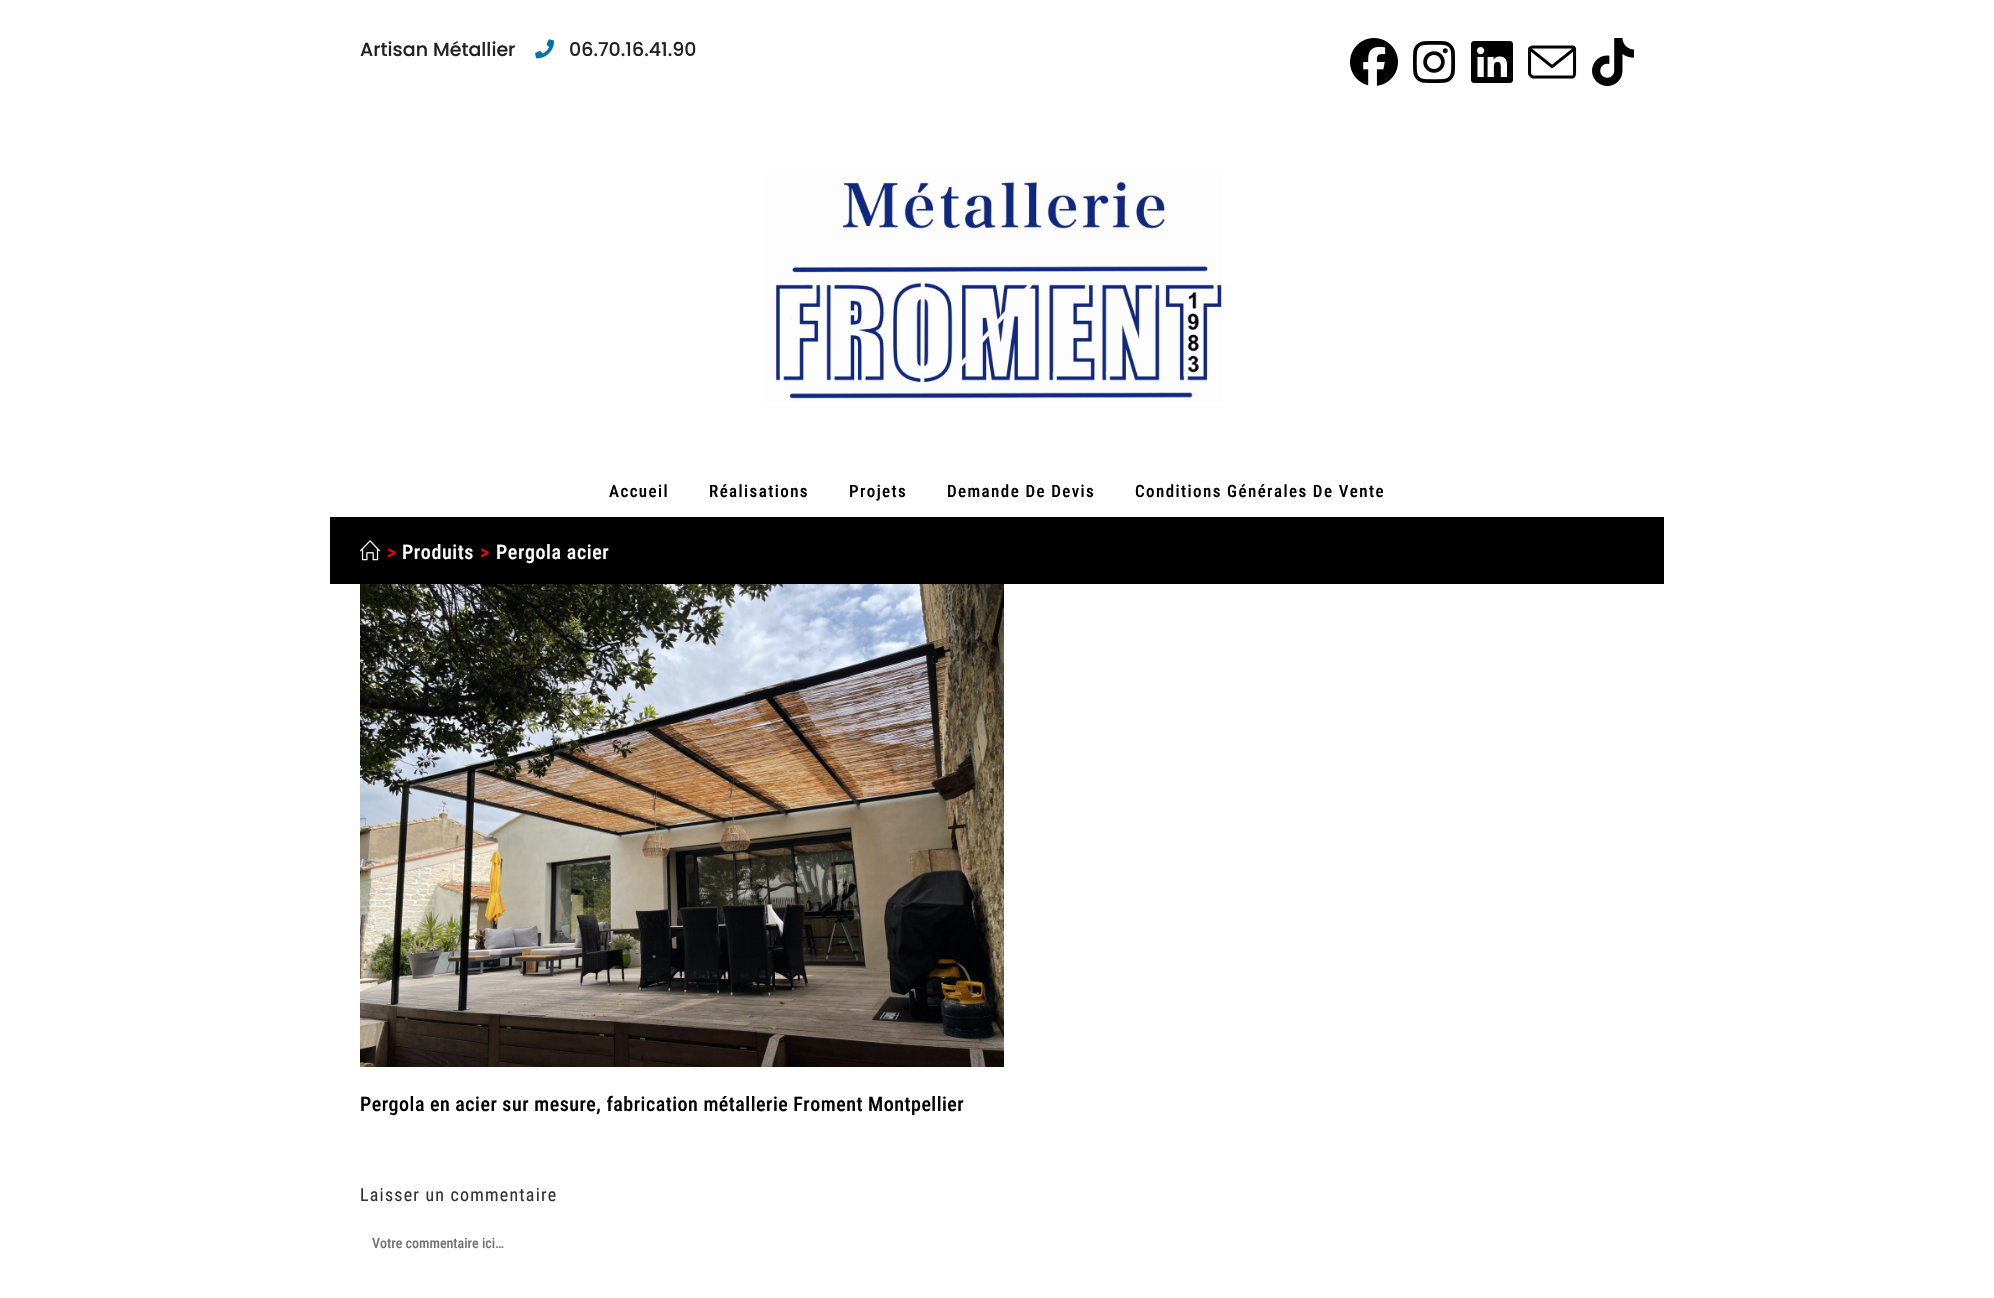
void draw(SkCanvas* canvas) {
    SkPaint paint;
    paint.setAntiAlias(true);
    auto spacedText = [&](const char* s, float x, float y, const SkFont& font, const SkPaint& ink, float letter, float word) {
        std::vector<SkGlyphID> glyphs(font.countText(s, strlen(s), SkTextEncoding::kUTF8));
        std::vector<float> xs(glyphs.size());
        font.textToGlyphs(s, strlen(s), SkTextEncoding::kUTF8, glyphs);
        font.getXPos(glyphs, xs, x);
        float extra = 0;
        for (size_t i = 0; i < glyphs.size(); i++) {
            xs[i] += extra;
            extra += letter + word * (glyphs[i] == font.unicharToGlyph(' '));
        }
        canvas->drawTextBlob(SkTextBlob::MakeFromPosHGlyphs(glyphs, xs, y, font), 0, 0, ink);
    };
    canvas->clear(0xFFFFFFFF);
    SkFont font1(fontMgr->matchFamilyStyle("Poppins", SkFontStyle(500, SkFontStyle::kNormal_Width, SkFontStyle::kUpright_Slant)), 19);
    font1.setSubpixel(true);
    paint.setColor(0xFF222222);
    canvas->drawString("Artisan Métallier", 360, 56, font1, paint);
    canvas->drawImageRect(SkImages::DeferredFromEncodedData(SkData::MakeFromFileName("img1.png")), SkRect::MakeXYWH(535, 39, 19, 20), SkSamplingOptions());
    canvas->drawString("06.70.16.41.90", 569, 56, font1, paint);
    canvas->drawImageRect(SkImages::DeferredFromEncodedData(SkData::MakeFromFileName("img2.png")), SkRect::MakeXYWH(1350, 38, 48, 48), SkSamplingOptions());
    canvas->drawImageRect(SkImages::DeferredFromEncodedData(SkData::MakeFromFileName("img3.png")), SkRect::MakeXYWH(1413, 41, 42, 42), SkSamplingOptions());
    canvas->drawImageRect(SkImages::DeferredFromEncodedData(SkData::MakeFromFileName("img4.png")), SkRect::MakeXYWH(1471, 41, 42, 42), SkSamplingOptions());
    canvas->drawImageRect(SkImages::DeferredFromEncodedData(SkData::MakeFromFileName("img5.png")), SkRect::MakeXYWH(1528, 45, 49, 34), SkSamplingOptions());
    canvas->drawImageRect(SkImages::DeferredFromEncodedData(SkData::MakeFromFileName("img6.png")), SkRect::MakeXYWH(1592, 38, 42, 48), SkSamplingOptions());
    canvas->drawImageRect(SkImages::DeferredFromEncodedData(SkData::MakeFromFileName("img7.png")), SkRect::MakeXYWH(764, 175, 459, 227), SkSamplingOptions());
    SkFont font2(fontMgr->matchFamilyStyle("Roboto Condensed", SkFontStyle(500, SkFontStyle::kNormal_Width, SkFontStyle::kUpright_Slant)), 17);
    font2.setSubpixel(true);
    paint.setColor(0xFF000000);
    spacedText("Accueil", 609, 497, font2, paint, 1.4f, 0);
    spacedText("Réalisations", 709, 497, font2, paint, 1.4f, 0);
    spacedText("Projets", 849, 497, font2, paint, 1.4f, 0);
    spacedText("Demande De Devis", 947, 497, font2, paint, 1.4f, 0);
    spacedText("Conditions Générales De Vente", 1135, 497, font2, paint, 1.4f, 0);
    canvas->drawRect(SkRect::MakeXYWH(330, 517, 1334, 67), paint);
    canvas->drawImageRect(SkImages::DeferredFromEncodedData(SkData::MakeFromFileName("img8.png")), SkRect::MakeXYWH(360, 540, 20, 21), SkSamplingOptions());
    SkFont font3(fontMgr->matchFamilyStyle("Roboto Condensed", SkFontStyle(500, SkFontStyle::kNormal_Width, SkFontStyle::kUpright_Slant)), 20);
    font3.setSubpixel(true);
    paint.setColor(0xFFFF0000);
    spacedText(">", 387, 559, font3, paint, 0.6f, 0);
    paint.setColor(0xFFFFFFFF);
    spacedText("Produits", 402, 559, font3, paint, 0.6f, 0);
    paint.setColor(0xFFFF0000);
    spacedText(">", 480, 559, font3, paint, 0.6f, 0);
    paint.setColor(0xFFFFFFFF);
    spacedText("Pergola acier", 496, 559, font3, paint, 0.6f, 0);
    canvas->drawImageRect(SkImages::DeferredFromEncodedData(SkData::MakeFromFileName("img9.png")), SkRect::MakeXYWH(360, 584, 644, 483), SkSamplingOptions());
    paint.setColor(0xFF000000);
    spacedText("Pergola en acier sur mesure, fabrication métallerie Froment Montpellier", 360, 1111, font3, paint, 0.5f, 0);
    SkFont font4(fontMgr->matchFamilyStyle("Roboto Condensed", SkFontStyle::Normal()), 18);
    font4.setSubpixel(true);
    paint.setColor(0xFF333333);
    spacedText("Laisser un commentaire", 360, 1201, font4, paint, 1.2f, 0);
    SkFont font5(fontMgr->matchFamilyStyle("Roboto Condensed", SkFontStyle(500, SkFontStyle::kNormal_Width, SkFontStyle::kUpright_Slant)), 14);
    font5.setSubpixel(true);
    paint.setColor(0xFF757575);
    canvas->drawString("Votre commentaire ici…", 372, 1248, font5, paint);
}
